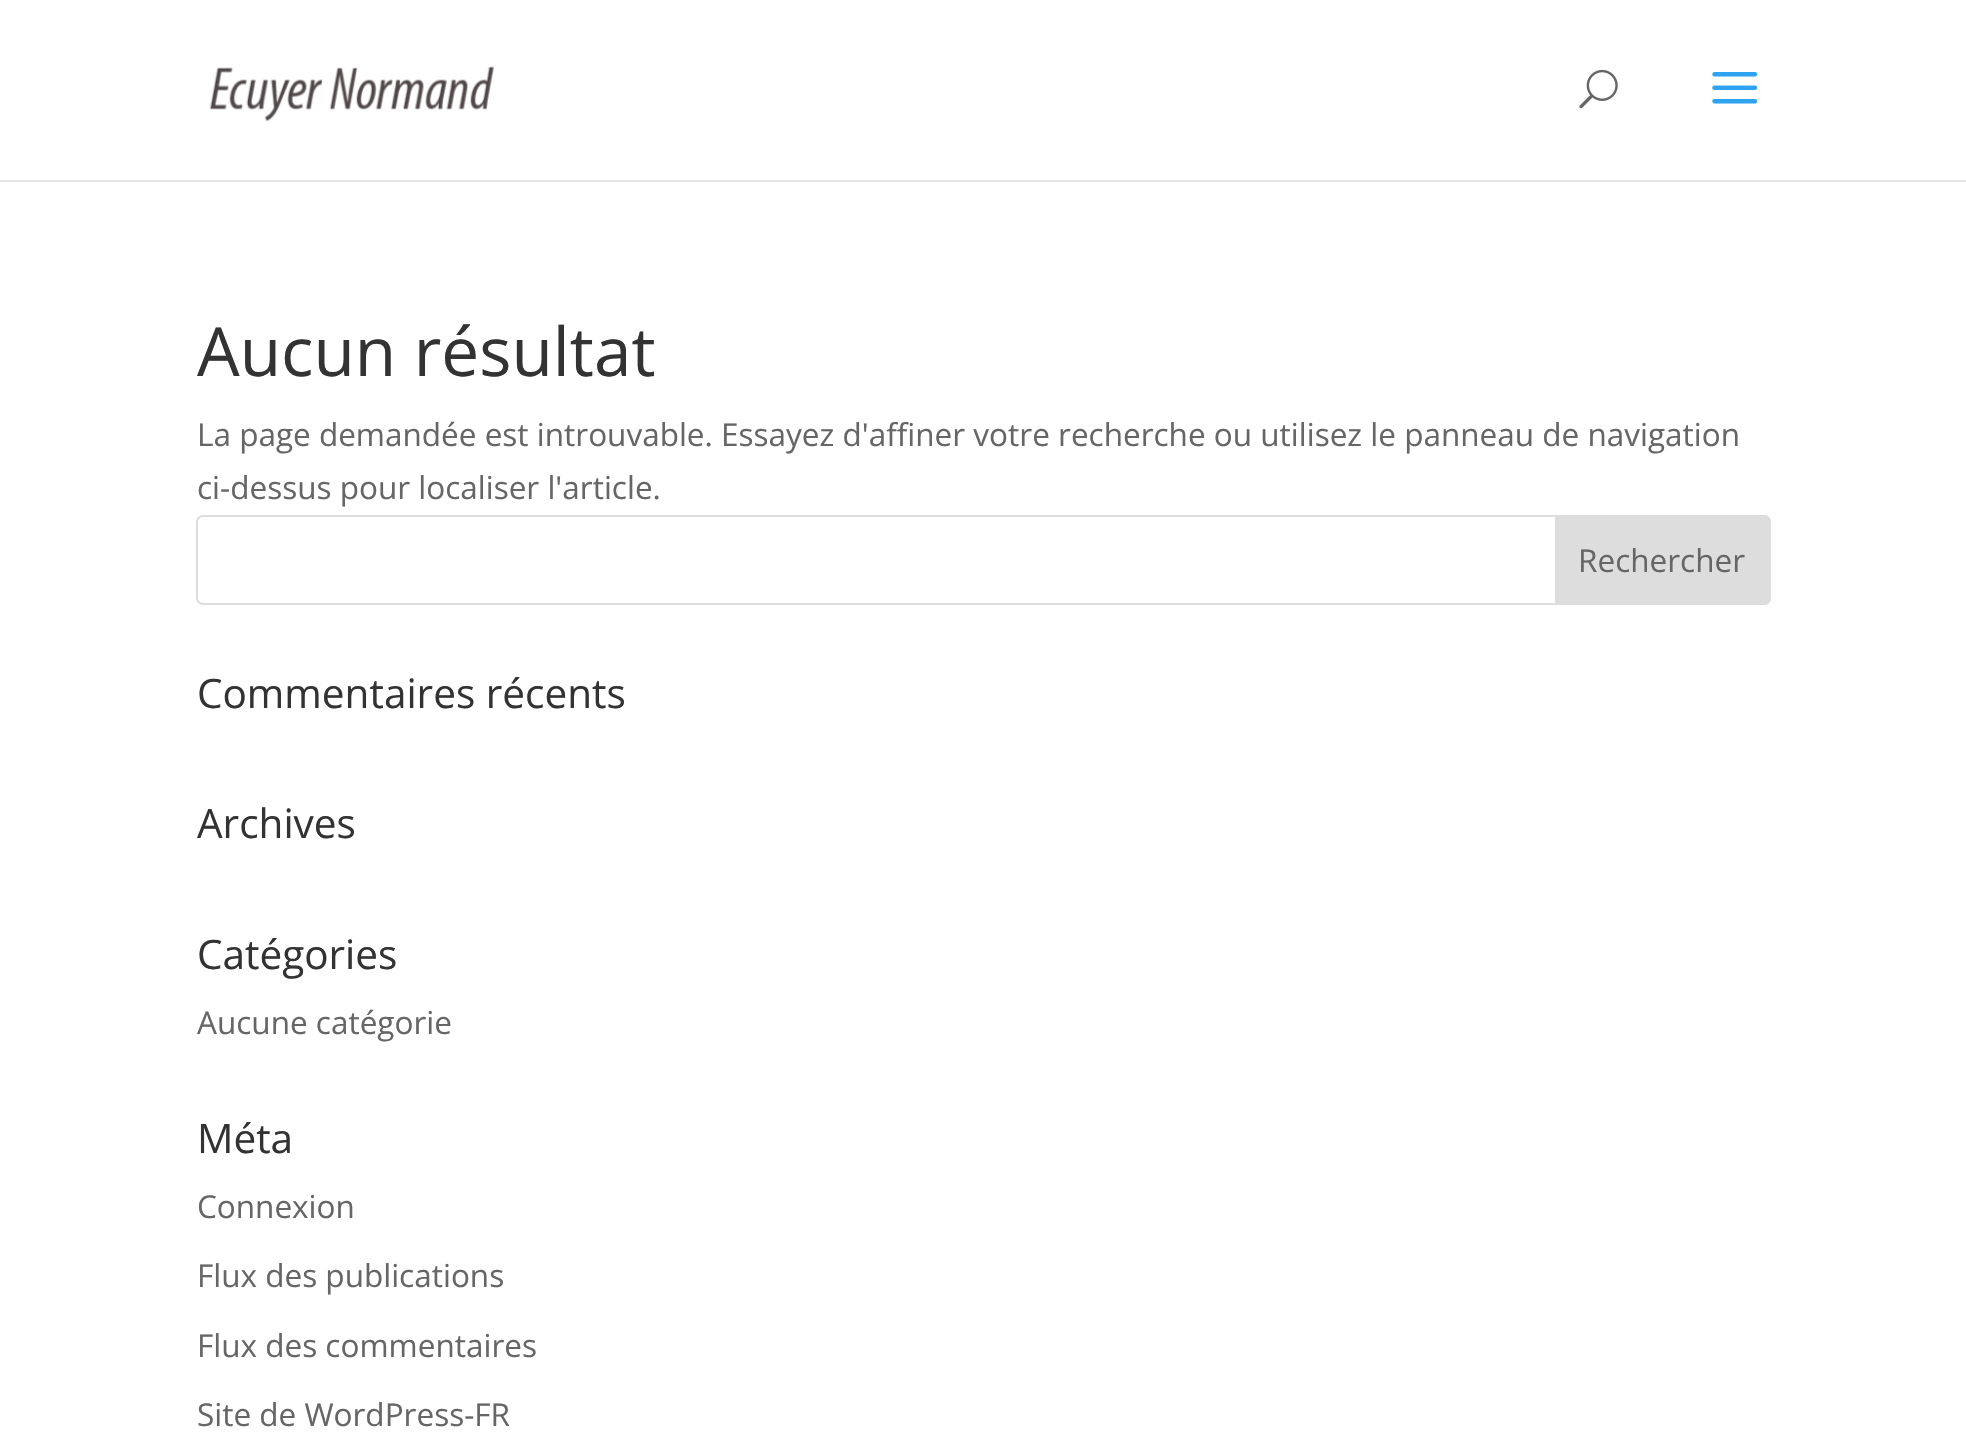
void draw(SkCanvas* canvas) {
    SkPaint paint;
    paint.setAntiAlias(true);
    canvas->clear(0xFFFFFFFF);
    paint.setColor(0xFFE6E6E6);
    canvas->drawPath(SkPathBuilder().moveTo(0, 180).lineTo(0, 182).lineTo(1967, 182).lineTo(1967, 2).lineTo(1966, 2).lineTo(1966, 180).close().detach(), paint);
    canvas->drawImageRect(SkImages::DeferredFromEncodedData(SkData::MakeFromFileName("img1.png")), SkRect::MakeXYWH(209, 66, 285, 56), SkSamplingOptions());
    canvas->drawImageRect(SkImages::DeferredFromEncodedData(SkData::MakeFromFileName("img2.png")), SkRect::MakeXYWH(1579, 69, 39, 40), SkSamplingOptions());
    canvas->drawImageRect(SkImages::DeferredFromEncodedData(SkData::MakeFromFileName("img3.png")), SkRect::MakeXYWH(1712, 72, 46, 32), SkSamplingOptions());
    SkFont font1(fontMgr->matchFamilyStyle("Open Sans", SkFontStyle::Normal()), 67.5f);
    font1.setSubpixel(true);
    paint.setColor(0xFF333333);
    canvas->drawString("Aucun résultat", 197, 376, font1, paint);
    SkFont font2(fontMgr->matchFamilyStyle("Open Sans", SkFontStyle::Normal()), 31.5f);
    font2.setSubpixel(true);
    paint.setColor(0xFF666666);
    canvas->drawString("La page demandée est introuvable. Essayez d'affiner votre recherche ou utilisez le panneau de navigation", 197, 446, font2, paint);
    canvas->drawString("ci-dessus pour localiser l'article.", 197, 499, font2, paint);
    paint.setStyle(SkPaint::kStroke_Style);
    paint.setStrokeWidth(2);
    paint.setColor(0xFFDDDDDD);
    canvas->drawRoundRect(SkRect::MakeXYWH(197, 516, 1573, 88), 6, 6, paint);
    paint.setStyle(SkPaint::kFill_Style);
    canvas->drawPath(SkPathBuilder().moveTo(1556, 516).lineTo(1764, 516).cubicTo(1767.5f, 516, 1770, 518.5f, 1770, 522).lineTo(1770, 598).cubicTo(1770, 601.5f, 1767.5f, 604, 1764, 604).lineTo(1556, 604).close().detach(), paint);
    paint.setStyle(SkPaint::kStroke_Style);
    canvas->drawPath(SkPathBuilder().moveTo(1556, 516).lineTo(1764, 516).cubicTo(1767.5f, 516, 1770, 518.5f, 1770, 522).lineTo(1770, 598).cubicTo(1770, 601.5f, 1767.5f, 604, 1764, 604).lineTo(1556, 604).close().detach(), paint);
    paint.setStyle(SkPaint::kFill_Style);
    paint.setColor(0xFF666666);
    canvas->drawString("Rechercher", 1578, 572, font2, paint);
    SkFont font3(fontMgr->matchFamilyStyle("Open Sans", SkFontStyle::Normal()), 40.5f);
    font3.setSubpixel(true);
    paint.setColor(0xFF333333);
    canvas->drawString("Commentaires récents", 197, 708, font3, paint);
    canvas->drawString("Archives", 197, 838, font3, paint);
    canvas->drawString("Catégories", 197, 969, font3, paint);
    paint.setColor(0xFF666666);
    canvas->drawString("Aucune catégorie", 197, 1034, font2, paint);
    paint.setColor(0xFF333333);
    canvas->drawString("Méta", 197, 1153, font3, paint);
    paint.setColor(0xFF666666);
    canvas->drawString("Connexion", 197, 1218, font2, paint);
    canvas->drawString("Flux des publications", 197, 1287, font2, paint);
    canvas->drawString("Flux des commentaires", 197, 1357, font2, paint);
    canvas->drawString("Site de WordPress-FR", 197, 1426, font2, paint);
}
